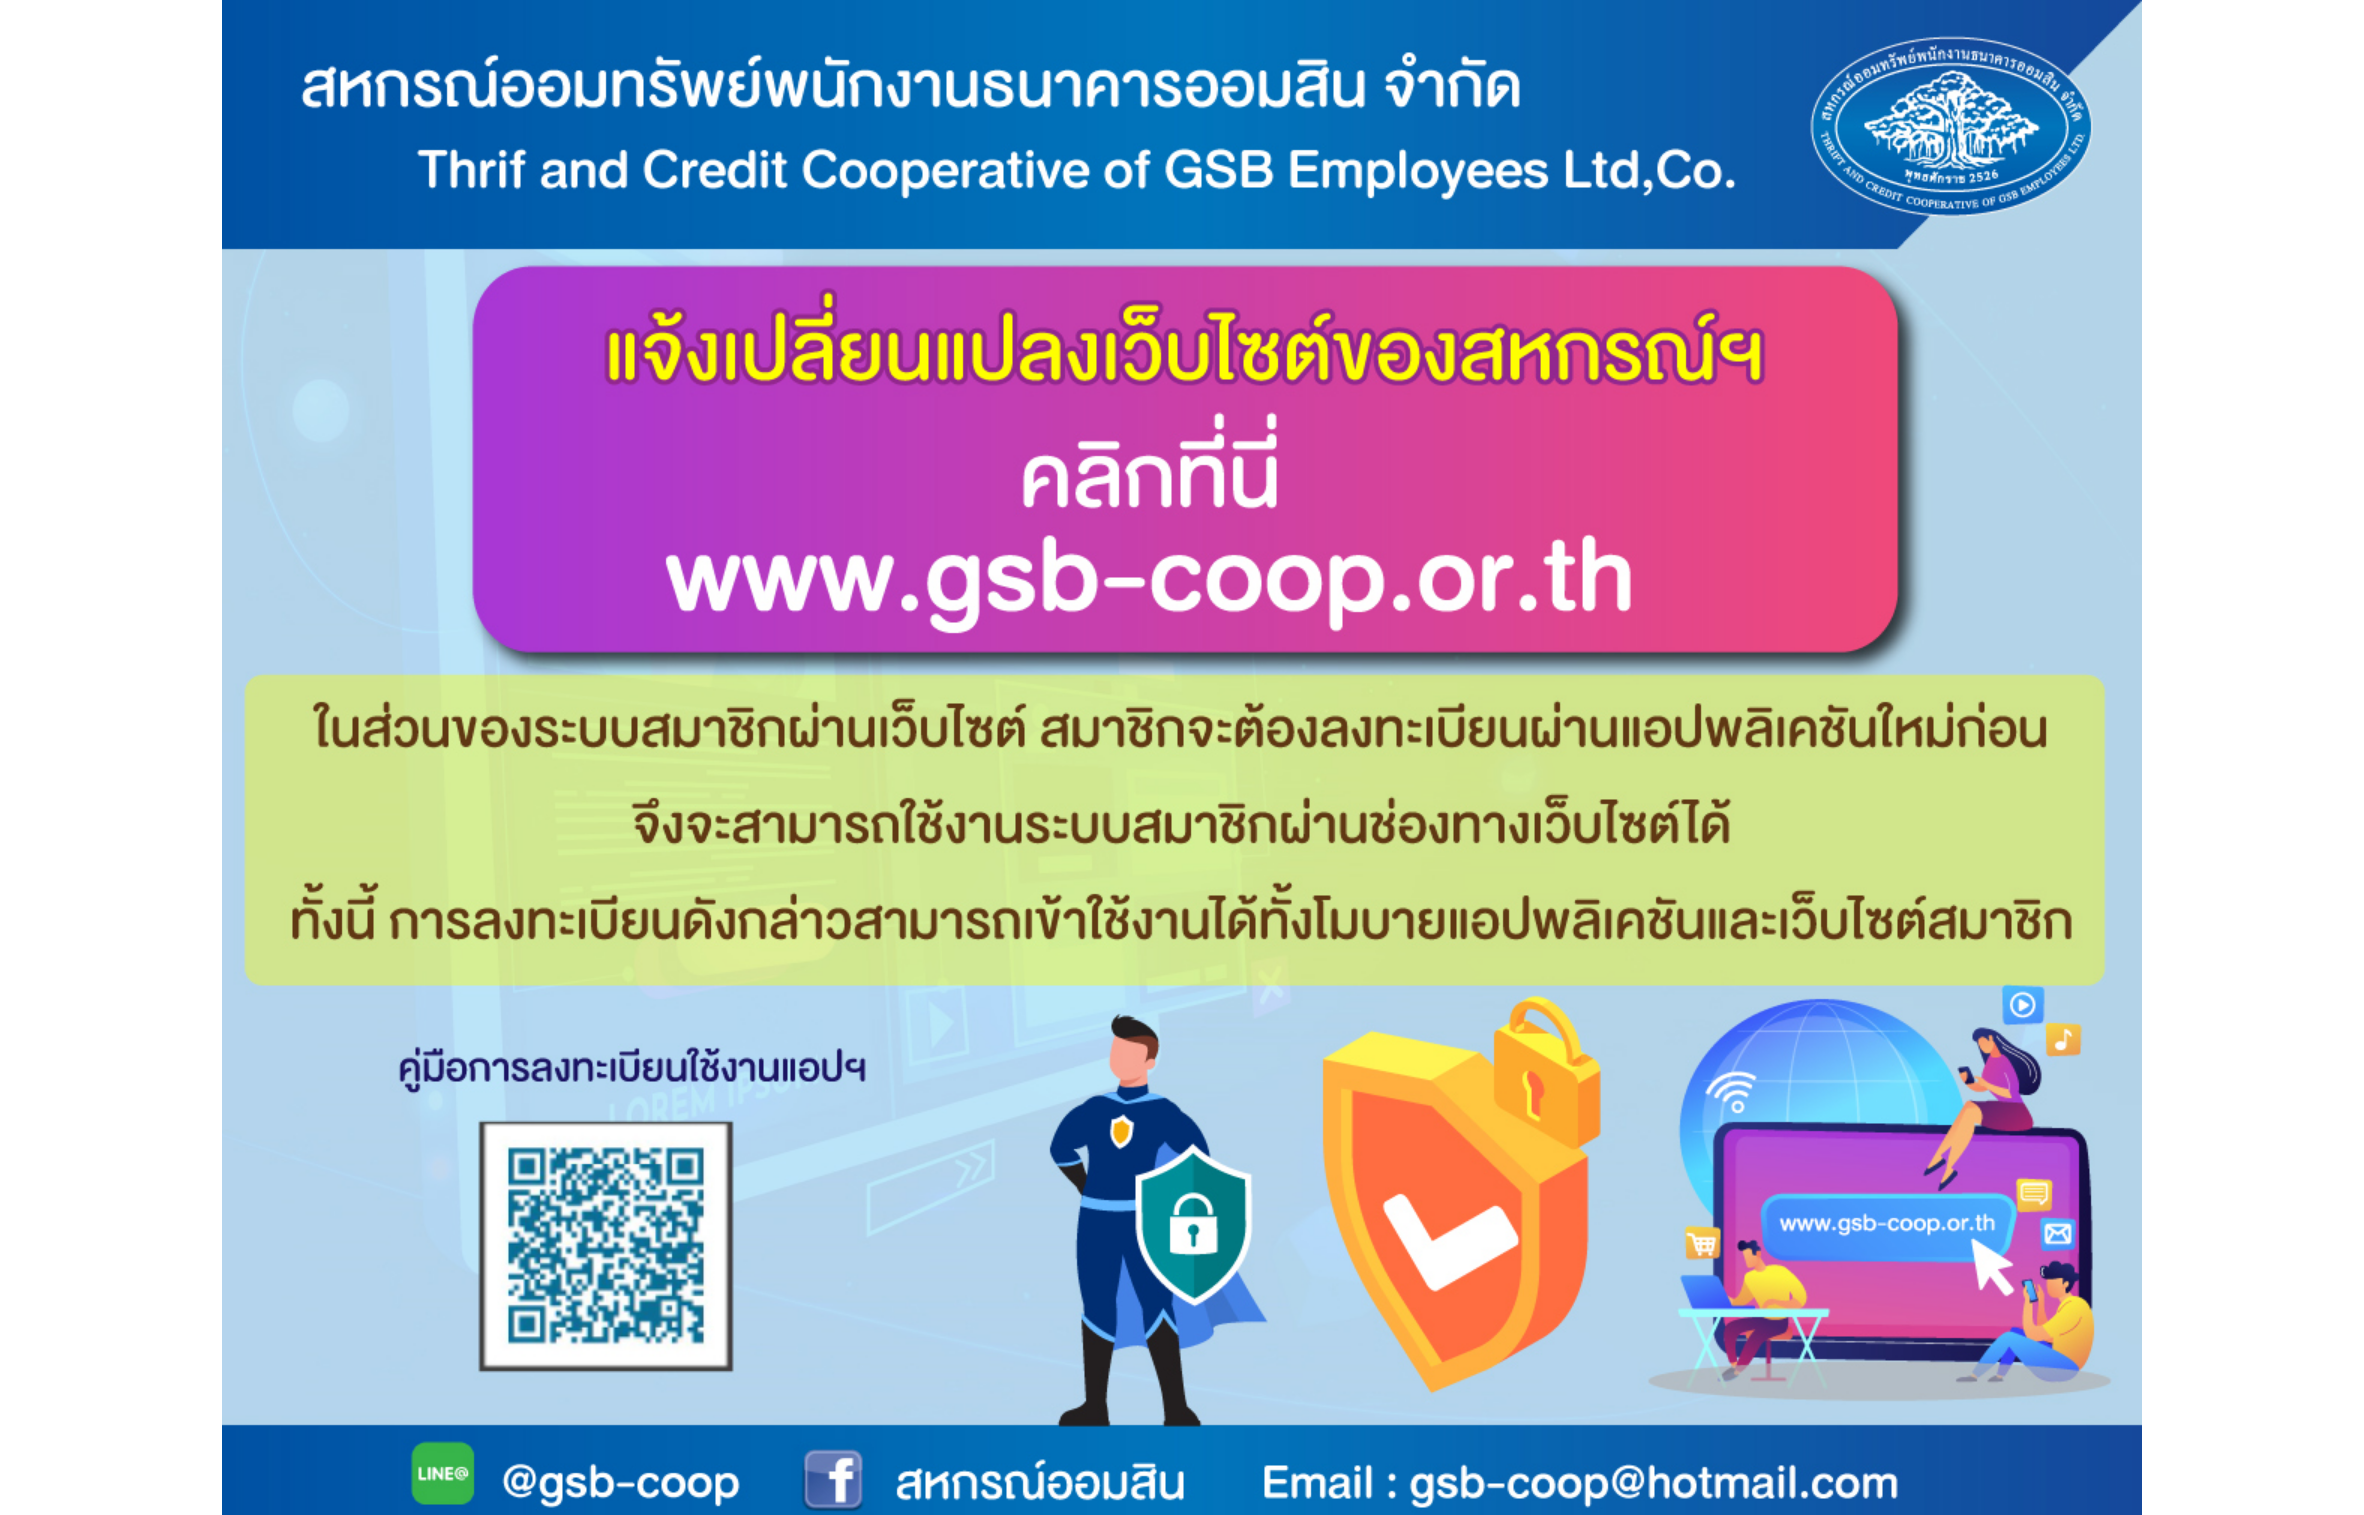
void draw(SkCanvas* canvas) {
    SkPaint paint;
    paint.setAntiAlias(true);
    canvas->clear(0xFFFFFFFF);
    canvas->drawImageRect(SkImages::DeferredFromEncodedData(SkData::MakeFromFileName("img1.png")), SkRect::MakeXYWH(222, 0, 1920, 1515), SkSamplingOptions());
}
